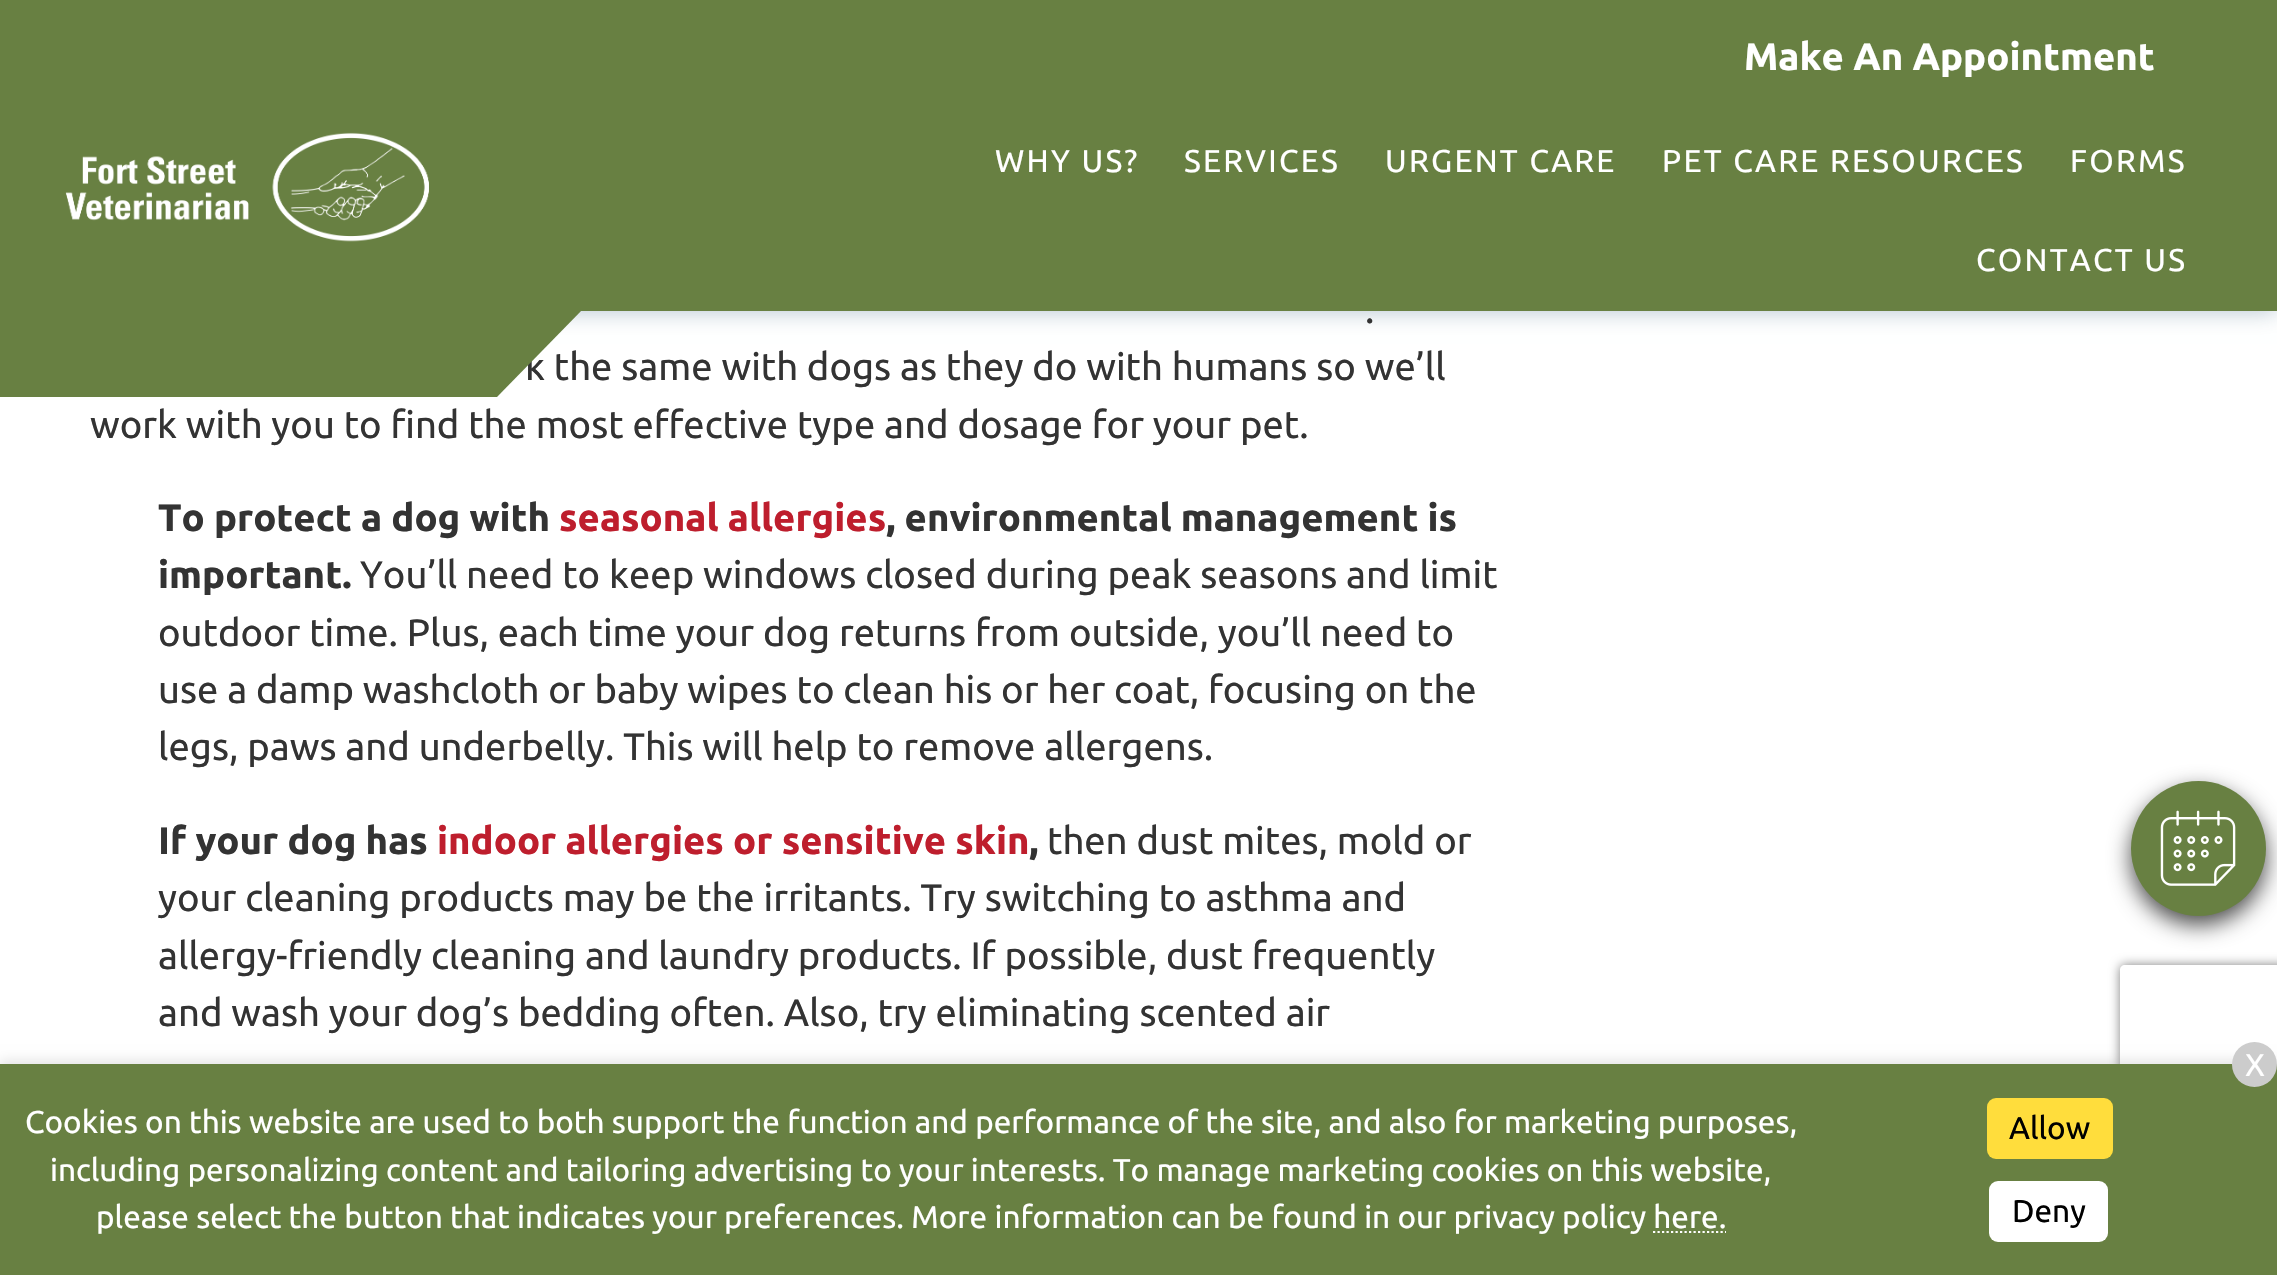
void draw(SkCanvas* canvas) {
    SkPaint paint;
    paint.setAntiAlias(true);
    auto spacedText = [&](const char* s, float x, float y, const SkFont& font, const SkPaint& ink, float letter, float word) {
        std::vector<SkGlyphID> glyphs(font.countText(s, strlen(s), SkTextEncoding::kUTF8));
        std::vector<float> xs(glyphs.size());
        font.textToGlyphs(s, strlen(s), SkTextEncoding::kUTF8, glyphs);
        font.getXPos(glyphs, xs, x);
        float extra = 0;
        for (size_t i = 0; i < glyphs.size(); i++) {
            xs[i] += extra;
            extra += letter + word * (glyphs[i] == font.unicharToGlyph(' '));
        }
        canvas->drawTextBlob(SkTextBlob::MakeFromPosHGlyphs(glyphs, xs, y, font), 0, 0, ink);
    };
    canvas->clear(0xFFFFFFFF);
    paint.setColor(0x4D00345B);
    paint.setMaskFilter(SkMaskFilter::MakeBlur(kNormal_SkBlurStyle, 11));
    canvas->drawRect(SkRect::MakeXYWH(0, 0, 2277, 311), paint);
    paint.setMaskFilter(nullptr);
    paint.setColor(0xFF688042);
    canvas->drawRect(SkRect::MakeXYWH(0, 0, 2277, 311), paint);
    canvas->drawImageRect(SkImages::DeferredFromEncodedData(SkData::MakeFromFileName("img1.png")), SkRect::MakeXYWH(65, 132, 364, 110), SkSamplingOptions());
    SkFont font1(fontMgr->matchFamilyStyle("Ubuntu", SkFontStyle::Bold()), 38.25f);
    font1.setSubpixel(true);
    paint.setColor(0xFFFFFFFF);
    canvas->drawString("Make An Appointment", 1744, 70, font1, paint);
    SkFont font2(fontMgr->matchFamilyStyle("Ubuntu", SkFontStyle::Normal()), 31.5f);
    font2.setSubpixel(true);
    spacedText("WHY US?", 995, 172, font2, paint, 2.25f, 0);
    spacedText("SERVICES", 1184, 172, font2, paint, 2.25f, 0);
    spacedText("URGENT CARE", 1385, 172, font2, paint, 2.25f, 0);
    spacedText("PET CARE RESOURCES", 1662, 172, font2, paint, 2.25f, 0);
    spacedText("FORMS", 2070, 172, font2, paint, 2.25f, 0);
    spacedText("CONTACT US", 1976, 271, font2, paint, 2.25f, 0);
    SkFont font3(fontMgr->matchFamilyStyle("Ubuntu", SkFontStyle::Normal()), 38.25f);
    font3.setSubpixel(true);
    paint.setColor(0xFF333333);
    canvas->drawString("k the same with dogs as they do with humans so we’ll", 525, 380, font3, paint);
    paint.setColor(0xFF688042);
    canvas->drawPath(SkPathBuilder().moveTo(0, 308).lineTo(0, 397).lineTo(497, 397).lineTo(584, 308).close().detach(), paint);
    paint.setColor(0xFF333333);
    canvas->drawString(".", 1365, 323, font3, paint);
    canvas->drawString("work with you to find the most effective type and dosage for your pet.", 90, 438, font3, paint);
    canvas->drawString("To protect a dog with", 158, 531, font1, paint);
    paint.setColor(0xFFBE1E2D);
    canvas->drawString("seasonal allergies", 559, 531, font1, paint);
    paint.setColor(0xFF333333);
    canvas->drawString(", environmental management is", 886, 531, font1, paint);
    canvas->drawString("important.", 158, 588, font1, paint);
    canvas->drawString("You’ll need to keep windows closed during peak seasons and limit", 360, 588, font3, paint);
    canvas->drawString("outdoor time. Plus, each time your dog returns from outside, you’ll need to", 158, 646, font3, paint);
    canvas->drawString("use a damp washcloth or baby wipes to clean his or her coat, focusing on the", 158, 703, font3, paint);
    canvas->drawString("legs, paws and underbelly. This will help to remove allergens.", 158, 760, font3, paint);
    canvas->drawString("If your dog has", 158, 854, font1, paint);
    paint.setColor(0xFFBE1E2D);
    canvas->drawString("indoor allergies or sensitive skin", 437, 854, font1, paint);
    paint.setColor(0xFF333333);
    canvas->drawString(",", 1029, 854, font1, paint);
    canvas->drawString("then dust mites, mold or", 1047, 854, font3, paint);
    canvas->drawString("your cleaning products may be the irritants. Try switching to asthma and", 158, 911, font3, paint);
    canvas->drawString("allergy-friendly cleaning and laundry products. If possible, dust frequently", 158, 969, font3, paint);
    canvas->drawString("and wash your dog’s bedding often. Also, try eliminating scented air", 158, 1026, font3, paint);
    paint.setColor(0x1A000000);
    paint.setMaskFilter(SkMaskFilter::MakeBlur(kNormal_SkBlurStyle, 5.5f));
    canvas->drawRect(SkRect::MakeXYWH(0, 1060, 2277, 211), paint);
    paint.setMaskFilter(nullptr);
    canvas->save();
    canvas->clipPath(SkPathBuilder(SkPathFillType::kEvenOdd).moveTo(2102, 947).lineTo(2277, 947).lineTo(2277, 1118).lineTo(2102, 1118).close().moveTo(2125, 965).lineTo(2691, 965).cubicTo(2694, 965, 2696, 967, 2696, 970).lineTo(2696, 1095).cubicTo(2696, 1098, 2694, 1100, 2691, 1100).lineTo(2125, 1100).cubicTo(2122, 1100, 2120, 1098, 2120, 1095).lineTo(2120, 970).cubicTo(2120, 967, 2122, 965, 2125, 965).close().detach(), true);
    paint.setColor(0xFF808080);
    paint.setMaskFilter(SkMaskFilter::MakeBlur(kNormal_SkBlurStyle, 5.5f));
    canvas->drawRoundRect(SkRect::MakeXYWH(2120, 965, 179, 135), 5, 5, paint);
    paint.setMaskFilter(nullptr);
    canvas->restore();
    paint.setColor(0xFF688042);
    canvas->drawRect(SkRect::MakeXYWH(0, 1064, 2277, 211), paint);
    paint.setColor(0xFFCCCCCC);
    canvas->drawCircle(2254.5f, 1064.5f, 22.5f, paint);
    paint.setColor(0xFFFFFFFF);
    canvas->drawString("X", 2245, 1076, font2, paint);
    canvas->drawString("Cookies on this website are used to both support the function and performance of the site, and also for marketing purposes,", 25, 1133, font2, paint);
    canvas->drawString("including personalizing content and tailoring advertising to your interests. To manage marketing cookies on this website,", 50, 1181, font2, paint);
    canvas->drawString("please select the button that indicates your preferences. More information can be found in our privacy policy here.", 96, 1228, font2, paint);
    paint.setStyle(SkPaint::kStroke_Style);
    paint.setStrokeWidth(2.2f);
    paint.setPathEffect(SkDashPathEffect::Make({{2.25f, 2.25f}}, 0));
    canvas->drawPath(SkPathBuilder().moveTo(1653, 1232).lineTo(1726, 1232).detach(), paint);
    paint.setPathEffect(nullptr);
    paint.setStyle(SkPaint::kFill_Style);
    paint.setColor(0xFFFFDD3C);
    canvas->drawRoundRect(SkRect::MakeXYWH(1987, 1098, 126, 61), 9, 9, paint);
    paint.setColor(0xFF000000);
    canvas->drawString("Allow", 2009, 1139, font2, paint);
    paint.setColor(0xFFFFFFFF);
    canvas->drawRoundRect(SkRect::MakeXYWH(1989, 1181, 119, 61), 9, 9, paint);
    paint.setColor(0xFF000000);
    canvas->drawString("Deny", 2012, 1222, font2, paint);
    paint.setColor(0xB3000000);
    paint.setMaskFilter(SkMaskFilter::MakeBlur(kNormal_SkBlurStyle, 11));
    canvas->drawRoundRect(SkRect::MakeXYWH(2131, 790, 135, 135), 67.5f, 67.5f, paint);
    paint.setMaskFilter(nullptr);
    paint.setColor(0xFF688042);
    canvas->drawCircle(2198.5f, 848.5f, 67.5f, paint);
    canvas->drawImageRect(SkImages::DeferredFromEncodedData(SkData::MakeFromFileName("img2.png")), SkRect::MakeXYWH(2160, 810, 76, 76), SkSamplingOptions());
}
